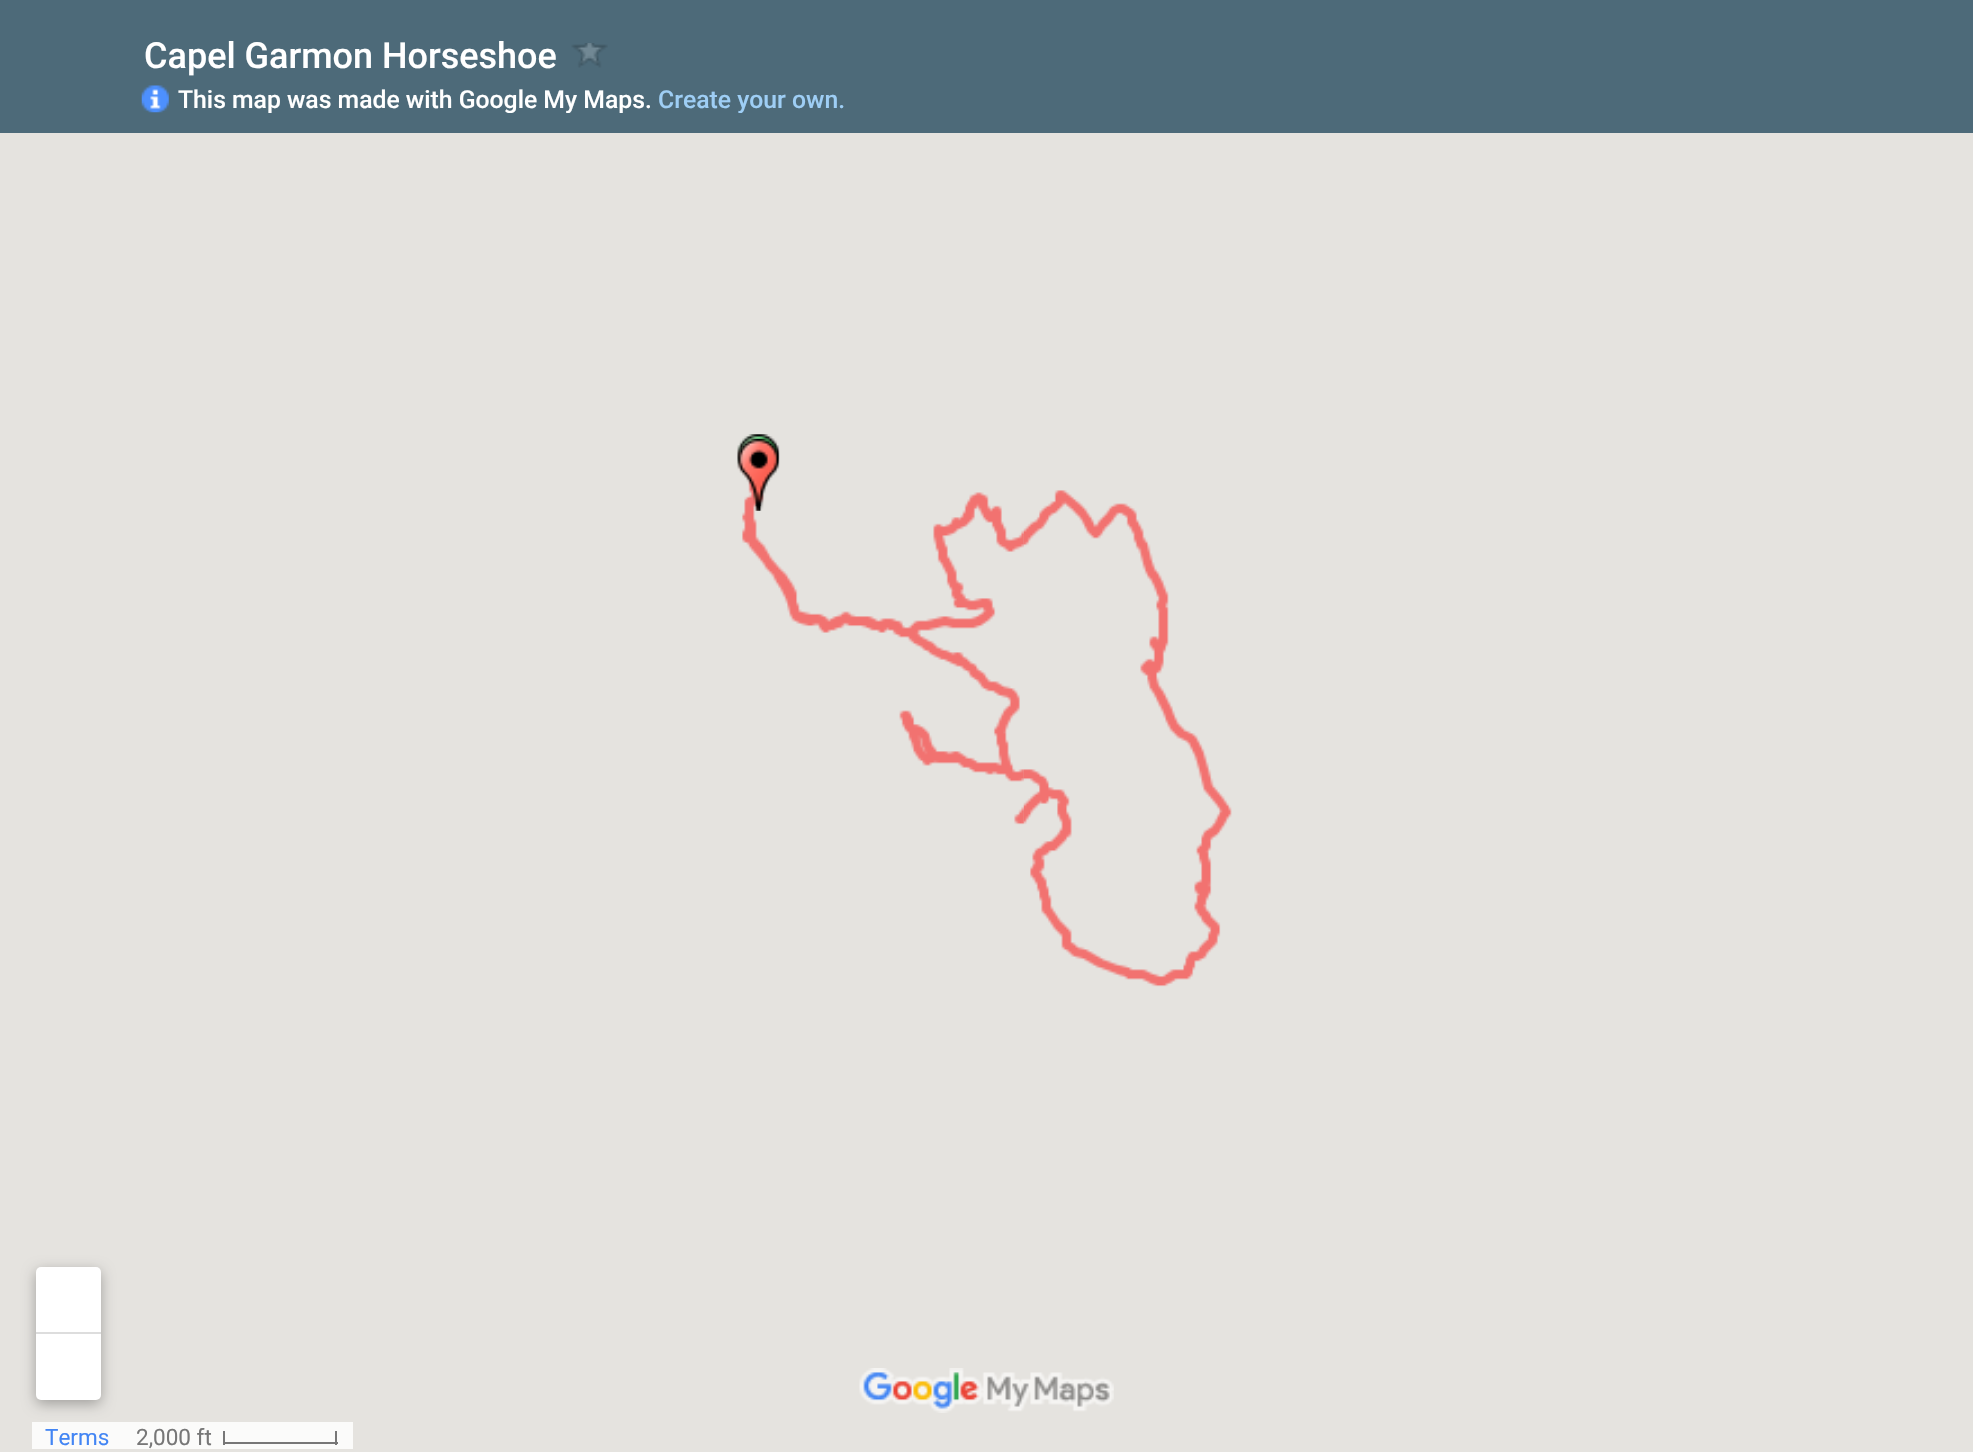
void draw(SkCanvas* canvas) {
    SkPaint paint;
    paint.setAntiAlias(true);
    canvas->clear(0xFFE5E3DF);
    paint.setColor(0xFF4D6A79);
    canvas->drawRect(SkRect::MakeXYWH(0, 0, 1973, 133), paint);
    SkFont font1(fontMgr->matchFamilyStyle("Roboto", SkFontStyle(500, SkFontStyle::kNormal_Width, SkFontStyle::kUpright_Slant)), 36);
    font1.setSubpixel(true);
    paint.setColor(0xFFFFFFFF);
    canvas->drawString("Capel Garmon Horseshoe", 144, 68, font1, paint);
    canvas->drawImageRect(SkImages::DeferredFromEncodedData(SkData::MakeFromFileName("img1.png")), SkRect::MakeXYWH(571, 43, 37, 25), SkSamplingOptions());
    canvas->drawImageRect(SkImages::DeferredFromEncodedData(SkData::MakeFromFileName("img2.png")), SkRect::MakeXYWH(141, 85, 28, 28), SkSamplingOptions());
    canvas->save();
    canvas->clipRect(SkRect::MakeXYWH(45, 25, 1620, 88));
    SkFont font2(fontMgr->matchFamilyStyle("Roboto", SkFontStyle(500, SkFontStyle::kNormal_Width, SkFontStyle::kUpright_Slant)), 24.75f);
    font2.setSubpixel(true);
    canvas->drawString("This map was made with Google My Maps.", 178, 108, font2, paint);
    paint.setColor(0xFF9ECEF5);
    canvas->drawString("Create your own.", 658, 108, font2, paint);
    canvas->restore();
    canvas->drawImageRect(SkImages::DeferredFromEncodedData(SkData::MakeFromFileName("img6.png")), SkRect::MakeXYWH(1023, 490, 209, 497), SkSamplingOptions());
    canvas->drawImageRect(SkImages::DeferredFromEncodedData(SkData::MakeFromFileName("img5.png")), SkRect::MakeXYWH(742, 478, 282, 347), SkSamplingOptions());
    canvas->drawImageRect(SkImages::DeferredFromEncodedData(SkData::MakeFromFileName("img3.png")), SkRect::MakeXYWH(737, 434, 43, 73), SkSamplingOptions());
    canvas->drawImageRect(SkImages::DeferredFromEncodedData(SkData::MakeFromFileName("img4.png")), SkRect::MakeXYWH(737, 438, 43, 73), SkSamplingOptions());
    paint.setColor(0x4D000000);
    paint.setMaskFilter(SkMaskFilter::MakeBlur(kNormal_SkBlurStyle, 7));
    canvas->drawRoundRect(SkRect::MakeXYWH(36, 1271, 65, 133), 5, 5, paint);
    paint.setMaskFilter(nullptr);
    paint.setColor(0xFFFFFFFF);
    canvas->drawRoundRect(SkRect::MakeXYWH(36, 1267, 65, 133), 5, 5, paint);
    paint.setColor(0xFFDDDDDD);
    canvas->drawRect(SkRect::MakeXYWH(36, 1332, 65, 2), paint);
    canvas->drawImageRect(SkImages::DeferredFromEncodedData(SkData::MakeFromFileName("img7.png")), SkRect::MakeXYWH(859, 1368, 255, 45), SkSamplingOptions());
    paint.setColor(0xFFFBFBFA);
    canvas->drawRect(SkRect::MakeXYWH(32, 1422, 321, 27), paint);
    SkFont font3(fontMgr->matchFamilyStyle("Roboto", SkFontStyle::Normal()), 22.5f);
    font3.setSubpixel(true);
    paint.setColor(0xFF4285F4);
    canvas->drawString("Terms", 45, 1445, font3, paint);
    paint.setColor(0xFF777777);
    canvas->drawString("2,000 ft", 136, 1445, font3, paint);
    canvas->drawRect(SkRect::MakeXYWH(223, 1442, 115, 2), paint);
    canvas->drawRect(SkRect::MakeXYWH(223, 1431, 2, 14), paint);
    canvas->drawRect(SkRect::MakeXYWH(335, 1431, 2, 14), paint);
}
